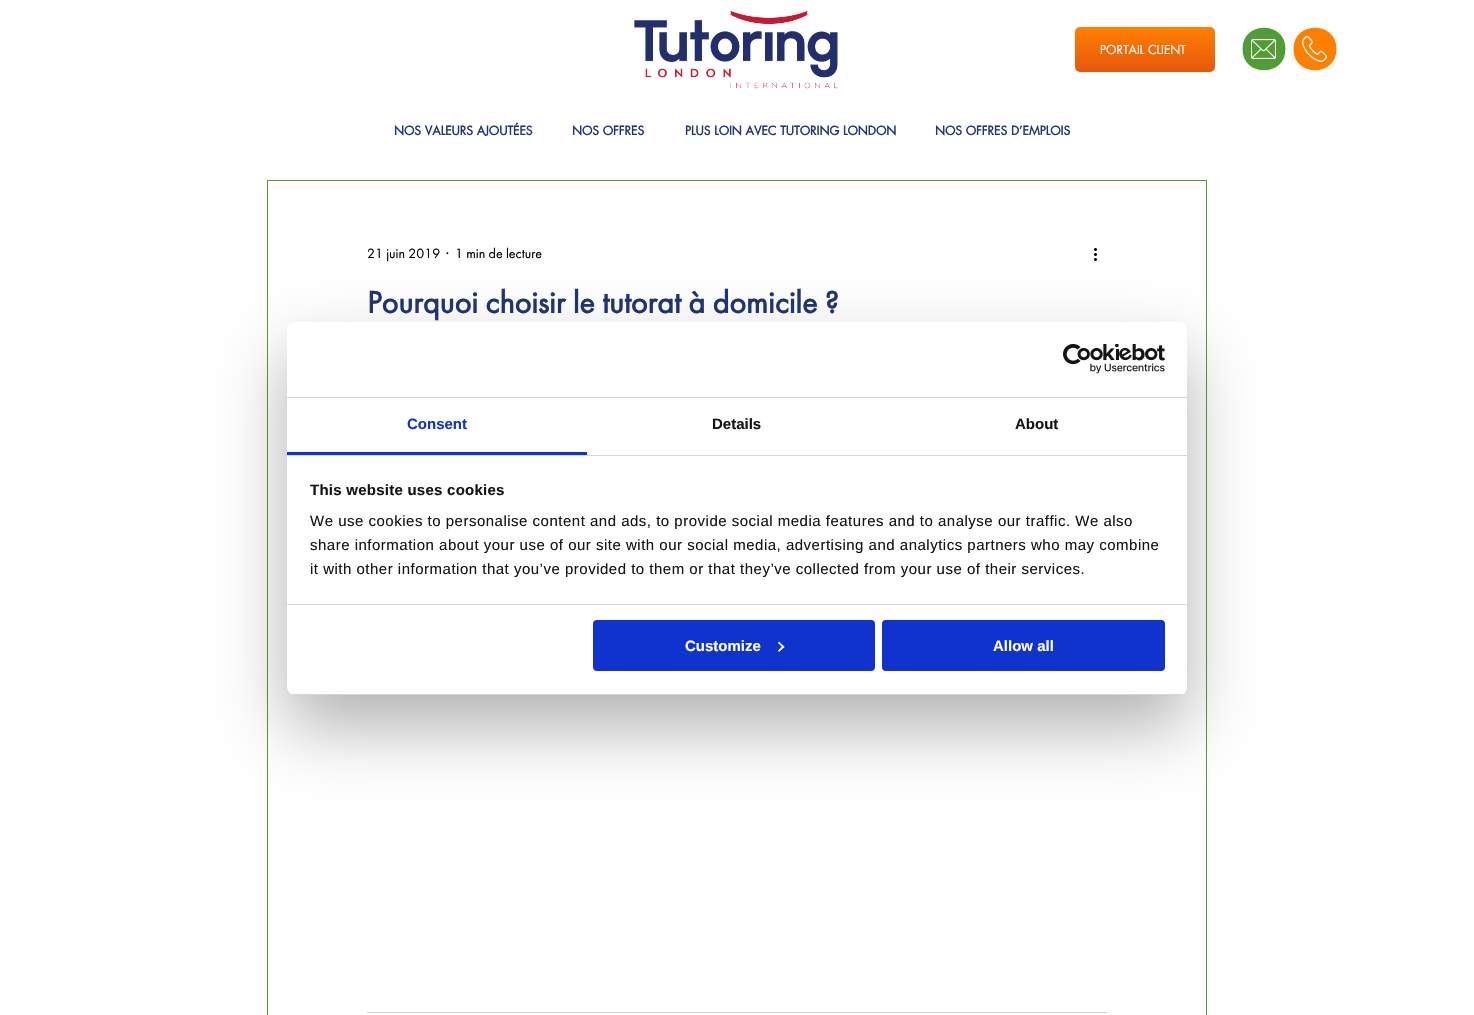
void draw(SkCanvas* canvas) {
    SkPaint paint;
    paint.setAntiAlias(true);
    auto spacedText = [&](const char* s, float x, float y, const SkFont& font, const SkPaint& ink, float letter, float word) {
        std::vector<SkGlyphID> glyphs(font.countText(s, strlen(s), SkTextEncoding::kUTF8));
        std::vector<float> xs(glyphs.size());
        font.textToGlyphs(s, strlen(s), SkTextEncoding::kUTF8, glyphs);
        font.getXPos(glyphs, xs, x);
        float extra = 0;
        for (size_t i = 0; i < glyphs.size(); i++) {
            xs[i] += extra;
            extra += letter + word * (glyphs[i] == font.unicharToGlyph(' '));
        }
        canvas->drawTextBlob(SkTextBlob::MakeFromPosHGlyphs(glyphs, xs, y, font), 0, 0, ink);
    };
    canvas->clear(0xFFFFFFFF);
    canvas->drawImageRect(SkImages::DeferredFromEncodedData(SkData::MakeFromFileName("img1.png")), SkRect::MakeXYWH(634, 10, 204, 79), SkSamplingOptions());
    {
        const SkColor colors[] = {0xFFFF8000, 0xFFE6570D};
        const float stops[] = {0, 1};
        const SkPoint ends[] = {{1145, 27}, {1145, 72}};
        paint.setShader(SkGradientShader::MakeLinear(ends, colors, stops, 2, SkTileMode::kClamp));
        paint.setAlpha(255);
    }
    canvas->drawRoundRect(SkRect::MakeXYWH(1075, 27, 140, 45), 5, 5, paint);
    SkFont font1(fontMgr->matchFamilyStyle("futura", SkFontStyle::Normal()), 12);
    font1.setSubpixel(true);
    paint.setShader(nullptr);
    paint.setColor(0xFFFFFFFF);
    canvas->drawString("PORTAIL CLIENT", 1100, 54, font1, paint);
    paint.setColor(0xFF509C35);
    canvas->drawPath(SkPathBuilder().moveTo(1286, 49).cubicTo(1286, 78, 1242, 78, 1242, 49).cubicTo(1242, 20, 1286, 20, 1286, 49).close().detach(), paint);
    paint.setStyle(SkPaint::kStroke_Style);
    paint.setStrokeWidth(1);
    paint.setColor(0xFFFFFFFF);
    canvas->drawPath(SkPathBuilder().moveTo(1286, 49).cubicTo(1286, 78, 1242, 78, 1242, 49).cubicTo(1242, 20, 1286, 20, 1286, 49).close().detach(), paint);
    canvas->drawImageRect(SkImages::DeferredFromEncodedData(SkData::MakeFromFileName("img2.png")), SkRect::MakeXYWH(1251, 39, 25, 20), SkSamplingOptions());
    paint.setStyle(SkPaint::kFill_Style);
    paint.setColor(0xFFFF8000);
    canvas->drawPath(SkPathBuilder().moveTo(1337, 49).cubicTo(1337, 78, 1293, 78, 1293, 49).cubicTo(1293, 20, 1337, 20, 1337, 49).close().detach(), paint);
    paint.setStyle(SkPaint::kStroke_Style);
    paint.setColor(0xFFFFFFFF);
    canvas->drawPath(SkPathBuilder().moveTo(1337, 49).cubicTo(1337, 78, 1293, 78, 1293, 49).cubicTo(1293, 20, 1337, 20, 1337, 49).close().detach(), paint);
    canvas->drawImageRect(SkImages::DeferredFromEncodedData(SkData::MakeFromFileName("img3.png")), SkRect::MakeXYWH(1302, 36, 25, 26), SkSamplingOptions());
    SkFont font2(fontMgr->matchFamilyStyle("futura", SkFontStyle::Bold()), 12);
    font2.setSubpixel(true);
    paint.setStyle(SkPaint::kFill_Style);
    paint.setColor(0xFF223476);
    canvas->drawString("NOS VALEURS AJOUTÉES", 394, 135, font2, paint);
    canvas->drawString("NOS OFFRES", 572, 135, font2, paint);
    canvas->drawString("PLUS LOIN AVEC TUTORING LONDON", 685, 135, font2, paint);
    canvas->drawString("NOS OFFRES D’EMPLOIS", 935, 135, font2, paint);
    paint.setStyle(SkPaint::kStroke_Style);
    paint.setColor(0xFF509C35);
    canvas->drawRect(SkRect::MakeXYWH(267.5f, 180.5f, 939, 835), paint);
    SkFont font3(fontMgr->matchFamilyStyle("Futura PT", SkFontStyle::Normal()), 14);
    font3.setSubpixel(true);
    paint.setStyle(SkPaint::kFill_Style);
    paint.setColor(0xFF000000);
    canvas->drawString("21 juin 2019", 367, 258, font3, paint);
    canvas->drawString("·", 446, 258, font3, paint);
    canvas->drawString("1 min de lecture", 455, 258, font3, paint);
    canvas->drawImageRect(SkImages::DeferredFromEncodedData(SkData::MakeFromFileName("img4.png")), SkRect::MakeXYWH(1094, 248, 3, 13), SkSamplingOptions());
    SkFont font4(fontMgr->matchFamilyStyle("Futura PT", SkFontStyle::Bold()), 32);
    font4.setSubpixel(true);
    paint.setColor(0xFF223476);
    canvas->drawString("Pourquoi choisir le tutorat à domicile ?", 367, 313, font4, paint);
    paint.setColor(0xFFCCCCCC);
    canvas->drawRect(SkRect::MakeXYWH(367, 1012, 740, 1), paint);
    paint.setColor(0x4D000000);
    paint.setMaskFilter(SkMaskFilter::MakeBlur(kNormal_SkBlurStyle, 34));
    canvas->drawRoundRect(SkRect::MakeXYWH(287, 354, 900, 373), 8, 8, paint);
    paint.setMaskFilter(nullptr);
    paint.setColor(0xFFFFFFFF);
    canvas->drawRoundRect(SkRect::MakeXYWH(287, 322, 900, 373), 8, 8, paint);
    paint.setColor(0xFFD6D6D6);
    canvas->drawRect(SkRect::MakeXYWH(287, 397, 900, 1), paint);
    canvas->drawImageRect(SkImages::DeferredFromEncodedData(SkData::MakeFromFileName("img5.png")), SkRect::MakeXYWH(1063, 344, 102, 30), SkSamplingOptions());
    canvas->drawRect(SkRect::MakeXYWH(287, 455, 900, 1), paint);
    paint.setColor(0xFF1032CF);
    canvas->drawRect(SkRect::MakeXYWH(287, 452, 300, 3), paint);
    SkFont font5(fontMgr->matchFamilyStyle("Liberation Sans", SkFontStyle::Bold()), 15);
    font5.setSubpixel(true);
    canvas->drawString("Consent", 407, 429, font5, paint);
    paint.setColor(0xFF141414);
    canvas->drawString("Details", 712, 429, font5, paint);
    canvas->drawString("About", 1015, 429, font5, paint);
    paint.setColor(0xFFD6D6D6);
    canvas->drawRect(SkRect::MakeXYWH(287, 604, 900, 1), paint);
    paint.setColor(0xFF141414);
    spacedText("This website uses cookies", 310, 495, font5, paint, 0.25f, 0);
    SkFont font6(fontMgr->matchFamilyStyle("Liberation Sans", SkFontStyle::Normal()), 15);
    font6.setSubpixel(true);
    spacedText("We use cookies to personalise content and ads, to provide social media features and to analyse our traffic. We also", 310, 526, font6, paint, 0.5f, 0);
    spacedText("share information about your use of our site with our social media, advertising and analytics partners who may combine", 310, 550, font6, paint, 0.5f, 0);
    spacedText("it with other information that you’ve provided to them or that they’ve collected from your use of their services.", 310, 574, font6, paint, 0.5f, 0);
    canvas->save();
    canvas->clipPath(SkPathBuilder().moveTo(295, 322).lineTo(1179, 322).cubicTo(1183.5f, 322, 1187, 325.5f, 1187, 330).lineTo(1187, 687).cubicTo(1187, 691.5f, 1183.5f, 695, 1179, 695).lineTo(295, 695).cubicTo(290.5f, 695, 287, 691.5f, 287, 687).lineTo(287, 330).cubicTo(287, 325.5f, 290.5f, 322, 295, 322).close().detach(), true);
    paint.setColor(0xFFD6D6D6);
    canvas->drawRect(SkRect::MakeXYWH(287, 694, 900, 1), paint);
    canvas->restore();
    paint.setColor(0xFF1032CF);
    canvas->drawRoundRect(SkRect::MakeXYWH(594, 621, 280, 49), 3, 3, paint);
    paint.setStyle(SkPaint::kStroke_Style);
    paint.setStrokeWidth(2);
    canvas->drawRoundRect(SkRect::MakeXYWH(594, 621, 280, 49), 3, 3, paint);
    paint.setStyle(SkPaint::kFill_Style);
    paint.setColor(0xFFFFFFFF);
    canvas->drawString("Customize", 685, 651, font5, paint);
    canvas->drawPath(SkPathBuilder().moveTo(779, 641.5f).lineTo(784.5f, 647).lineTo(783, 648).lineTo(778, 643).close().detach(), paint);
    canvas->drawPath(SkPathBuilder().moveTo(783, 645.5f).lineTo(784.5f, 647).lineTo(779, 652).lineTo(778, 650.5f).close().detach(), paint);
    paint.setColor(0xFF1032CF);
    canvas->drawRoundRect(SkRect::MakeXYWH(883, 621, 281, 49), 3, 3, paint);
    paint.setStyle(SkPaint::kStroke_Style);
    canvas->drawRoundRect(SkRect::MakeXYWH(883, 621, 281, 49), 3, 3, paint);
    paint.setStyle(SkPaint::kFill_Style);
    paint.setColor(0xFFFFFFFF);
    canvas->drawString("Allow all", 993, 651, font5, paint);
}
